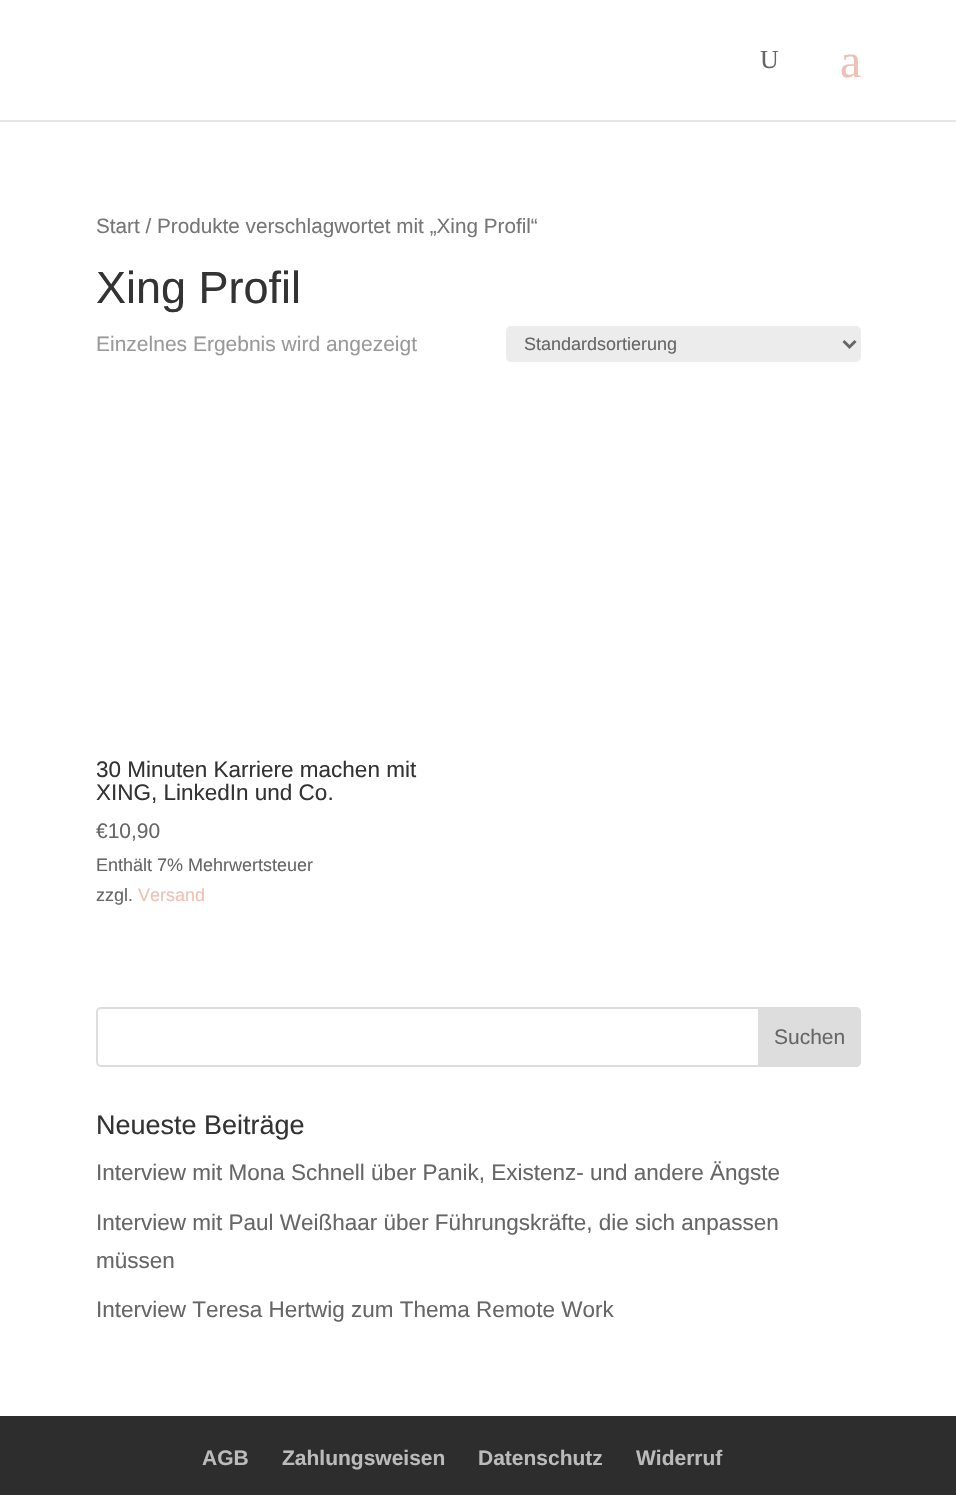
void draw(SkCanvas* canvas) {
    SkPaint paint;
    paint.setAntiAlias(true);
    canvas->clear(0xFFFFFFFF);
    paint.setColor(0xFFE6E6E6);
    canvas->drawRect(SkRect::MakeXYWH(0, 120, 956, 2), paint);
    SkFont font1(fontMgr->matchFamilyStyle("Liberation Serif", SkFontStyle::Normal()), 26);
    font1.setSubpixel(true);
    paint.setColor(0xFF666666);
    canvas->drawString("U", 760, 68, font1, paint);
    SkFont font2(fontMgr->matchFamilyStyle("Liberation Serif", SkFontStyle::Normal()), 48);
    font2.setSubpixel(true);
    paint.setColor(0xFFEDC1B4);
    canvas->drawString("a", 840, 77, font2, paint);
    SkFont font3(fontMgr->matchFamilyStyle("Liberation Sans", SkFontStyle::Normal()), 20.7f);
    font3.setSubpixel(true);
    paint.setColor(0xFF767676);
    canvas->drawString("Start / Produkte verschlagwortet mit „Xing Profil“", 96, 233, font3, paint);
    SkFont font4(fontMgr->matchFamilyStyle("Liberation Sans", SkFontStyle::Normal()), 45);
    font4.setSubpixel(true);
    paint.setColor(0xFF333333);
    canvas->drawString("Xing Profil", 96, 303, font4, paint);
    SkFont font5(fontMgr->matchFamilyStyle("Liberation Sans", SkFontStyle::Normal()), 21);
    font5.setSubpixel(true);
    paint.setColor(0xFF999999);
    canvas->drawString("Einzelnes Ergebnis wird angezeigt", 96, 351, font5, paint);
    paint.setColor(0xFFECECEC);
    canvas->drawRoundRect(SkRect::MakeXYWH(506, 326, 355, 36), 5, 5, paint);
    paint.setStyle(SkPaint::kStroke_Style);
    paint.setStrokeWidth(3);
    paint.setColor(0xFF666666);
    canvas->drawPath(SkPathBuilder().moveTo(843.5f, 341).lineTo(849.5f, 347).lineTo(855.5f, 341).detach(), paint);
    SkFont font6(fontMgr->matchFamilyStyle("Liberation Sans", SkFontStyle::Normal()), 18);
    font6.setSubpixel(true);
    paint.setStyle(SkPaint::kFill_Style);
    canvas->drawString("Standardsortierung", 524, 350, font6, paint);
    SkFont font7(fontMgr->matchFamilyStyle("Liberation Sans", SkFontStyle::Normal()), 22.5f);
    font7.setSubpixel(true);
    paint.setColor(0xFF333333);
    canvas->drawString("30 Minuten Karriere machen mit", 96, 777, font7, paint);
    canvas->drawString("XING, LinkedIn und Co.", 96, 800, font7, paint);
    paint.setColor(0xFF666666);
    canvas->drawString("€10,90", 96, 838, font5, paint);
    canvas->drawString("Enthält 7% Mehrwertsteuer", 96, 871, font6, paint);
    canvas->drawString("zzgl.", 96, 901, font6, paint);
    paint.setColor(0xFFEDC1B4);
    canvas->drawString("Versand", 138, 901, font6, paint);
    paint.setStyle(SkPaint::kStroke_Style);
    paint.setStrokeWidth(2);
    paint.setColor(0xFFDDDDDD);
    canvas->drawRoundRect(SkRect::MakeXYWH(97, 1008, 763, 58), 4, 4, paint);
    paint.setStyle(SkPaint::kFill_Style);
    canvas->drawPath(SkPathBuilder().moveTo(759, 1008).lineTo(856, 1008).cubicTo(858, 1008, 860, 1010, 860, 1012).lineTo(860, 1062).cubicTo(860, 1064, 858, 1066, 856, 1066).lineTo(759, 1066).close().detach(), paint);
    paint.setStyle(SkPaint::kStroke_Style);
    canvas->drawPath(SkPathBuilder().moveTo(759, 1008).lineTo(856, 1008).cubicTo(858, 1008, 860, 1010, 860, 1012).lineTo(860, 1062).cubicTo(860, 1064, 858, 1066, 856, 1066).lineTo(759, 1066).close().detach(), paint);
    paint.setStyle(SkPaint::kFill_Style);
    paint.setColor(0xFF666666);
    canvas->drawString("Suchen", 774, 1044, font5, paint);
    SkFont font8(fontMgr->matchFamilyStyle("Liberation Sans", SkFontStyle::Normal()), 27);
    font8.setSubpixel(true);
    paint.setColor(0xFF333333);
    canvas->drawString("Neueste Beiträge", 96, 1134, font8, paint);
    paint.setColor(0xFF666666);
    canvas->drawString("Interview mit Mona Schnell über Panik, Existenz- und andere Ängste", 96, 1180, font7, paint);
    canvas->drawString("Interview mit Paul Weißhaar über Führungskräfte, die sich anpassen", 96, 1230, font7, paint);
    canvas->drawString("müssen", 96, 1268, font7, paint);
    canvas->drawString("Interview Teresa Hertwig zum Thema Remote Work", 96, 1317, font7, paint);
    paint.setColor(0xFF2D2D2D);
    canvas->drawRect(SkRect::MakeXYWH(0, 1416, 956, 79), paint);
    SkFont font9(fontMgr->matchFamilyStyle("Liberation Sans", SkFontStyle::Bold()), 21);
    font9.setSubpixel(true);
    paint.setColor(0xFFBBBBBB);
    canvas->drawString("AGB", 202, 1465, font9, paint);
    canvas->drawString("Zahlungsweisen", 282, 1465, font9, paint);
    canvas->drawString("Datenschutz", 478, 1465, font9, paint);
    canvas->drawString("Widerruf", 636, 1465, font9, paint);
}
